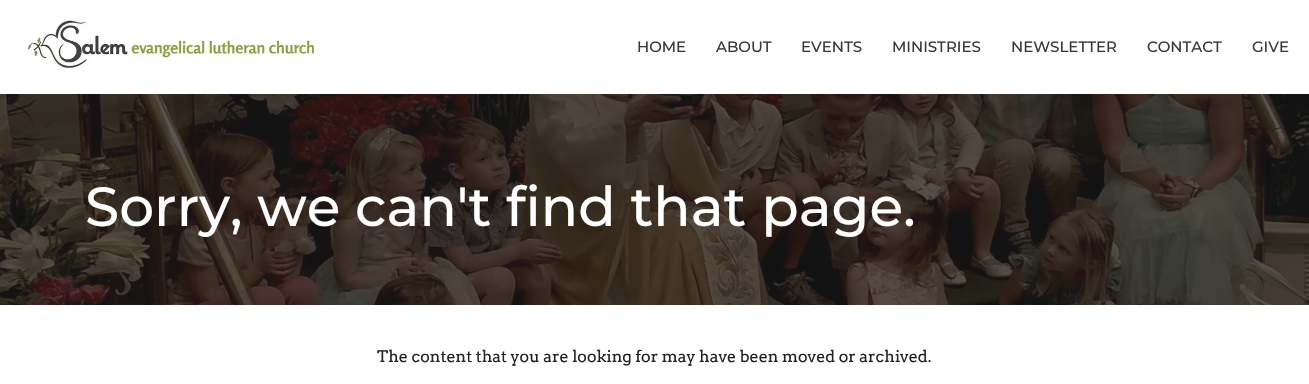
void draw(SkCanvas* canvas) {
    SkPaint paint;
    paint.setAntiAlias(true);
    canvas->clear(0xFFFFFFFF);
    canvas->drawImageRect(SkImages::DeferredFromEncodedData(SkData::MakeFromFileName("img1.png")), SkRect::MakeXYWH(27, 20, 288, 48), SkSamplingOptions());
    SkFont font1(fontMgr->matchFamilyStyle("Montserrat", SkFontStyle(500, SkFontStyle::kNormal_Width, SkFontStyle::kUpright_Slant)), 15);
    font1.setSubpixel(true);
    paint.setColor(0xFF383838);
    canvas->drawString("HOME", 637, 52, font1, paint);
    canvas->drawString("ABOUT", 716, 52, font1, paint);
    canvas->drawString("EVENTS", 801, 52, font1, paint);
    canvas->drawString("MINISTRIES", 892, 52, font1, paint);
    canvas->drawString("NEWSLETTER", 1011, 52, font1, paint);
    canvas->drawString("CONTACT", 1147, 52, font1, paint);
    canvas->drawString("GIVE", 1252, 52, font1, paint);
    canvas->drawImageRect(SkImages::DeferredFromEncodedData(SkData::MakeFromFileName("img2.png")), SkRect::MakeXYWH(0, 94, 1309, 211), SkSamplingOptions());
    SkFont font2(fontMgr->matchFamilyStyle("Montserrat", SkFontStyle(500, SkFontStyle::kNormal_Width, SkFontStyle::kUpright_Slant)), 55);
    font2.setSubpixel(true);
    paint.setColor(0xFFFFFFFF);
    canvas->drawString("Sorry, we can't find that page.", 85, 226, font2, paint);
    SkFont font3(fontMgr->matchFamilyStyle("Arvo", SkFontStyle::Normal()), 16);
    font3.setSubpixel(true);
    paint.setColor(0xFF222222);
    canvas->drawString("The content that you are looking for may have been moved or archived.", 377, 362, font3, paint);
}
